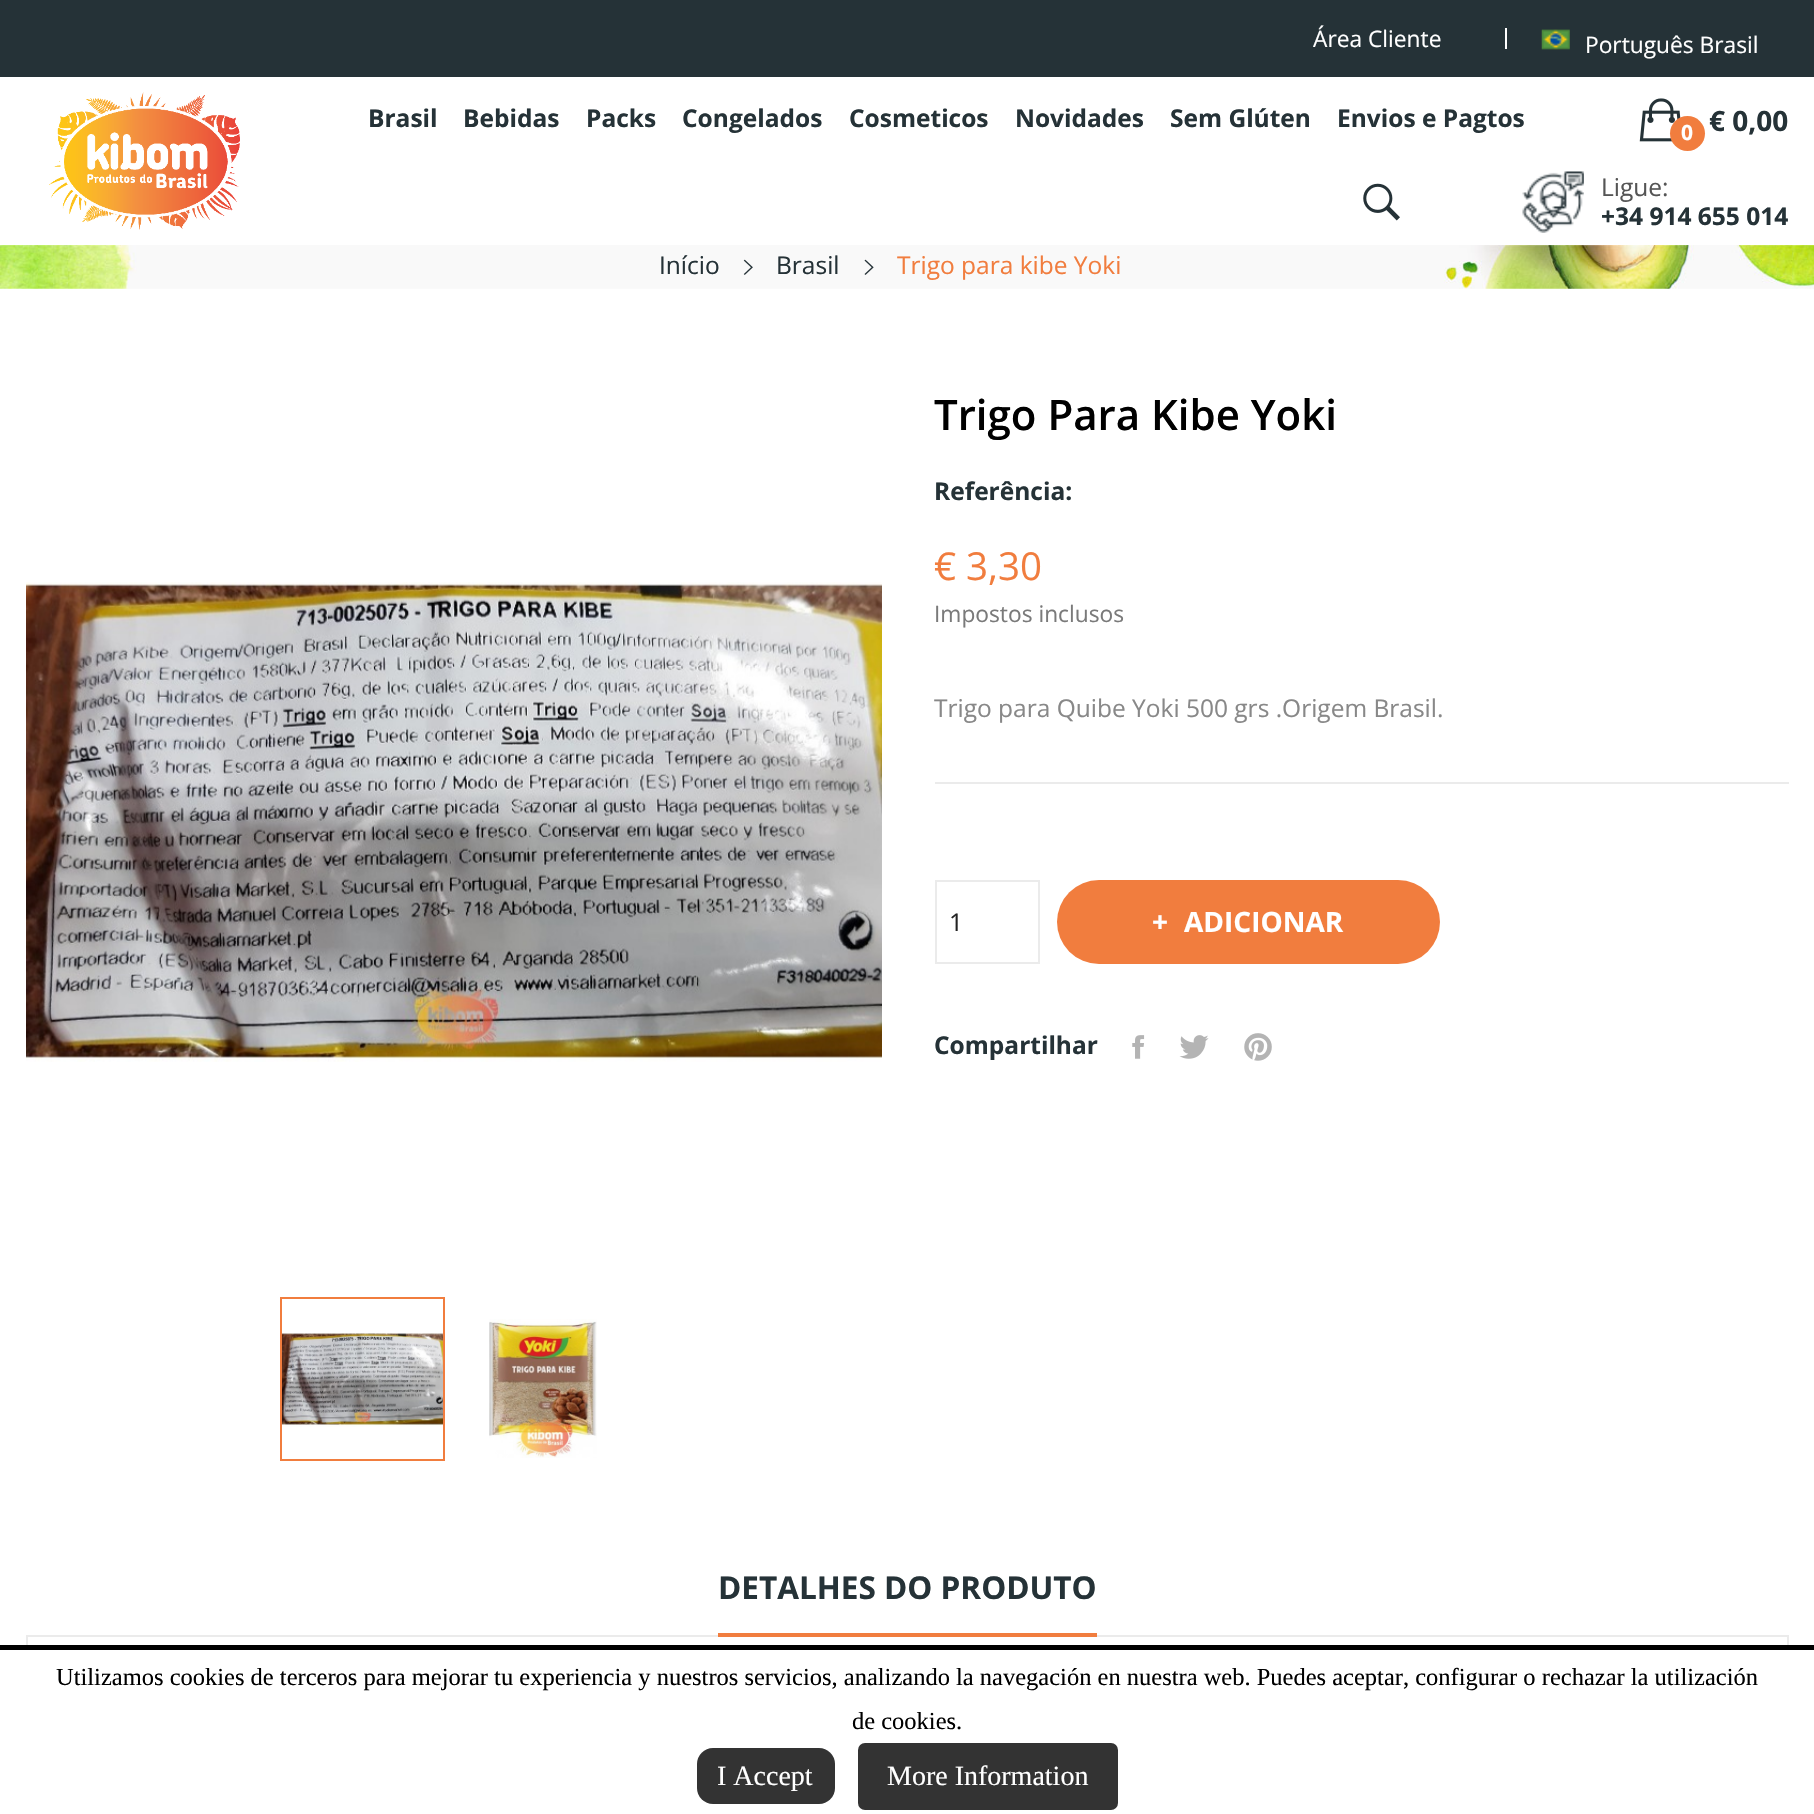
void draw(SkCanvas* canvas) {
    SkPaint paint;
    paint.setAntiAlias(true);
    canvas->clear(0xFFFFFFFF);
    paint.setColor(0xFF253237);
    canvas->drawRect(SkRect::MakeXYWH(0, 0, 1814, 77), paint);
    SkFont font1(fontMgr->matchFamilyStyle("Open Sans", SkFontStyle::Normal()), 22.75f);
    font1.setSubpixel(true);
    paint.setColor(0xFFFFFFFF);
    canvas->drawString("Área Cliente", 1313, 47, font1, paint);
    canvas->drawRect(SkRect::MakeXYWH(1505, 28, 2, 21), paint);
    canvas->drawImageRect(SkImages::DeferredFromEncodedData(SkData::MakeFromFileName("img1.png")), SkRect::MakeXYWH(1541, 29, 29, 21), SkSamplingOptions());
    canvas->drawString("Português Brasil", 1585, 53, font1, paint);
    canvas->drawImageRect(SkImages::DeferredFromEncodedData(SkData::MakeFromFileName("img2.png")), SkRect::MakeXYWH(49, 92, 191, 138), SkSamplingOptions());
    SkFont font2(fontMgr->matchFamilyStyle("Open Sans", SkFontStyle::Bold()), 24.5f);
    font2.setSubpixel(true);
    paint.setColor(0xFF253237);
    canvas->drawString("Brasil", 368, 127, font2, paint);
    canvas->drawString("Bebidas", 463, 127, font2, paint);
    canvas->drawString("Packs", 586, 127, font2, paint);
    canvas->drawString("Congelados", 682, 127, font2, paint);
    canvas->drawString("Cosmeticos", 849, 127, font2, paint);
    canvas->drawString("Novidades", 1015, 127, font2, paint);
    canvas->drawString("Sem Glúten", 1170, 127, font2, paint);
    canvas->drawString("Envios e Pagtos", 1337, 127, font2, paint);
    canvas->drawImageRect(SkImages::DeferredFromEncodedData(SkData::MakeFromFileName("img3.png")), SkRect::MakeXYWH(1639, 98, 42, 44), SkSamplingOptions());
    paint.setColor(0xFFF17D3E);
    canvas->drawCircle(1687.5f, 133.5f, 17.5f, paint);
    SkFont font3(fontMgr->matchFamilyStyle("Open Sans", SkFontStyle::Bold()), 21);
    font3.setSubpixel(true);
    paint.setColor(0xFFFFFFFF);
    canvas->drawString("0", 1681, 140, font3, paint);
    SkFont font4(fontMgr->matchFamilyStyle("Open Sans", SkFontStyle::Bold()), 28);
    font4.setSubpixel(true);
    paint.setColor(0xFF253237);
    canvas->drawString("€ 0,00", 1709, 131, font4, paint);
    canvas->drawImageRect(SkImages::DeferredFromEncodedData(SkData::MakeFromFileName("img4.png")), SkRect::MakeXYWH(1363, 183, 37, 38), SkSamplingOptions());
    canvas->drawImageRect(SkImages::DeferredFromEncodedData(SkData::MakeFromFileName("img5.png")), SkRect::MakeXYWH(1522, 171, 62, 62), SkSamplingOptions());
    SkFont font5(fontMgr->matchFamilyStyle("Open Sans", SkFontStyle::Normal()), 24.5f);
    font5.setSubpixel(true);
    paint.setColor(0xFF555555);
    canvas->drawString("Ligue:", 1601, 196, font5, paint);
    paint.setColor(0xFF253237);
    canvas->drawString("+34 914 655 014", 1601, 225, font2, paint);
    canvas->drawImageRect(SkImages::DeferredFromEncodedData(SkData::MakeFromFileName("img6.png")), SkRect::MakeXYWH(0, 245, 1814, 44), SkSamplingOptions());
    canvas->drawString("Início", 659, 274, font5, paint);
    canvas->drawImageRect(SkImages::DeferredFromEncodedData(SkData::MakeFromFileName("img7.png")), SkRect::MakeXYWH(743, 259, 10, 16), SkSamplingOptions());
    canvas->drawString("Brasil", 776, 274, font5, paint);
    canvas->drawImageRect(SkImages::DeferredFromEncodedData(SkData::MakeFromFileName("img8.png")), SkRect::MakeXYWH(864, 259, 10, 16), SkSamplingOptions());
    paint.setColor(0xFFF17D3E);
    canvas->drawString("Trigo para kibe Yoki", 897, 274, font5, paint);
    canvas->drawImageRect(SkImages::DeferredFromEncodedData(SkData::MakeFromFileName("img9.png")), SkRect::MakeXYWH(26, 582, 856, 480), SkSamplingOptions());
    canvas->drawImageRect(SkImages::DeferredFromEncodedData(SkData::MakeFromFileName("img10.png")), SkRect::MakeXYWH(282, 1333, 161, 94), SkSamplingOptions());
    paint.setStyle(SkPaint::kStroke_Style);
    paint.setStrokeWidth(2);
    canvas->drawRect(SkRect::MakeXYWH(281, 1298, 163, 162), paint);
    canvas->drawImageRect(SkImages::DeferredFromEncodedData(SkData::MakeFromFileName("img11.png")), SkRect::MakeXYWH(489, 1319, 108, 139), SkSamplingOptions());
    SkFont font6(fontMgr->matchFamilyStyle("Open Sans", SkFontStyle(600, SkFontStyle::kNormal_Width, SkFontStyle::kUpright_Slant)), 42);
    font6.setSubpixel(true);
    paint.setStyle(SkPaint::kFill_Style);
    paint.setColor(0xFF000000);
    canvas->drawString("Trigo Para Kibe Yoki", 934, 430, font6, paint);
    paint.setColor(0xFF253237);
    canvas->drawString("Referência:", 934, 500, font2, paint);
    SkFont font7(fontMgr->matchFamilyStyle("Open Sans", SkFontStyle::Normal()), 38.5f);
    font7.setSubpixel(true);
    paint.setColor(0xFFF17D3E);
    canvas->drawString("€ 3,30", 934, 580, font7, paint);
    paint.setColor(0xFF7A7A7A);
    canvas->drawString("Impostos inclusos", 934, 622, font1, paint);
    paint.setColor(0xFFEBEBEB);
    canvas->drawRect(SkRect::MakeXYWH(935, 782, 854, 2), paint);
    paint.setColor(0xFF888888);
    canvas->drawString("Trigo para Quibe Yoki 500 grs .Origem Brasil.", 934, 717, font5, paint);
    paint.setStyle(SkPaint::kStroke_Style);
    paint.setColor(0xFFEBEBEB);
    canvas->drawRect(SkRect::MakeXYWH(936, 881, 103, 82), paint);
    paint.setStyle(SkPaint::kFill_Style);
    paint.setColor(0xFF232323);
    canvas->drawString("1", 949, 931, font5, paint);
    paint.setColor(0xFFF17D3E);
    canvas->drawRoundRect(SkRect::MakeXYWH(1057, 880, 383, 84), 42, 42, paint);
    paint.setColor(0xFFFFFFFF);
    canvas->drawString("+", 1152, 932, font4, paint);
    canvas->drawString("ADICIONAR", 1184, 932, font4, paint);
    paint.setColor(0xFF253237);
    canvas->drawString("Compartilhar", 934, 1054, font2, paint);
    canvas->drawImageRect(SkImages::DeferredFromEncodedData(SkData::MakeFromFileName("img12.png")), SkRect::MakeXYWH(1132, 1035, 13, 24), SkSamplingOptions());
    canvas->drawImageRect(SkImages::DeferredFromEncodedData(SkData::MakeFromFileName("img13.png")), SkRect::MakeXYWH(1179, 1035, 30, 24), SkSamplingOptions());
    canvas->drawImageRect(SkImages::DeferredFromEncodedData(SkData::MakeFromFileName("img14.png")), SkRect::MakeXYWH(1244, 1033, 28, 28), SkSamplingOptions());
    SkFont font8(fontMgr->matchFamilyStyle("Open Sans", SkFontStyle::Bold()), 31.5f);
    font8.setSubpixel(true);
    canvas->drawString("DETALHES DO PRODUTO", 718, 1599, font8, paint);
    paint.setStyle(SkPaint::kStroke_Style);
    paint.setColor(0xFFEBEBEB);
    canvas->drawRect(SkRect::MakeXYWH(27, 1636, 1761, 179), paint);
    paint.setStyle(SkPaint::kFill_Style);
    paint.setColor(0xFFF17D3E);
    canvas->drawRect(SkRect::MakeXYWH(718, 1633, 379, 4), paint);
    paint.setColor(0xFFFFFFFF);
    canvas->drawRect(SkRect::MakeXYWH(26, 1650, 1763, 164), paint);
    paint.setColor(0xFF000000);
    canvas->drawRect(SkRect::MakeXYWH(0, 1645, 1814, 5), paint);
    SkFont font9(fontMgr->matchFamilyStyle("Liberation Serif", SkFontStyle::Normal()), 24.5f);
    font9.setSubpixel(true);
    canvas->drawString("Utilizamos cookies de terceros para mejorar tu experiencia y nuestros servicios, analizando la navegación en nuestra web. Puedes aceptar, configurar o rechazar la utilización", 56, 1685, font9, paint);
    canvas->drawString("de cookies.", 852, 1729, font9, paint);
    paint.setColor(0xFF333333);
    canvas->drawRoundRect(SkRect::MakeXYWH(697, 1748, 138, 56), 16, 16, paint);
    SkFont font10(fontMgr->matchFamilyStyle("Liberation Serif", SkFontStyle::Normal()), 28);
    font10.setSubpixel(true);
    paint.setColor(0xFFFFFFFF);
    canvas->drawString("I Accept", 717, 1785, font10, paint);
    paint.setColor(0xFF333333);
    canvas->drawRoundRect(SkRect::MakeXYWH(858, 1743, 260, 67), 7, 7, paint);
    paint.setColor(0xFFFFFFFF);
    canvas->drawString("More Information", 887, 1785, font10, paint);
}
